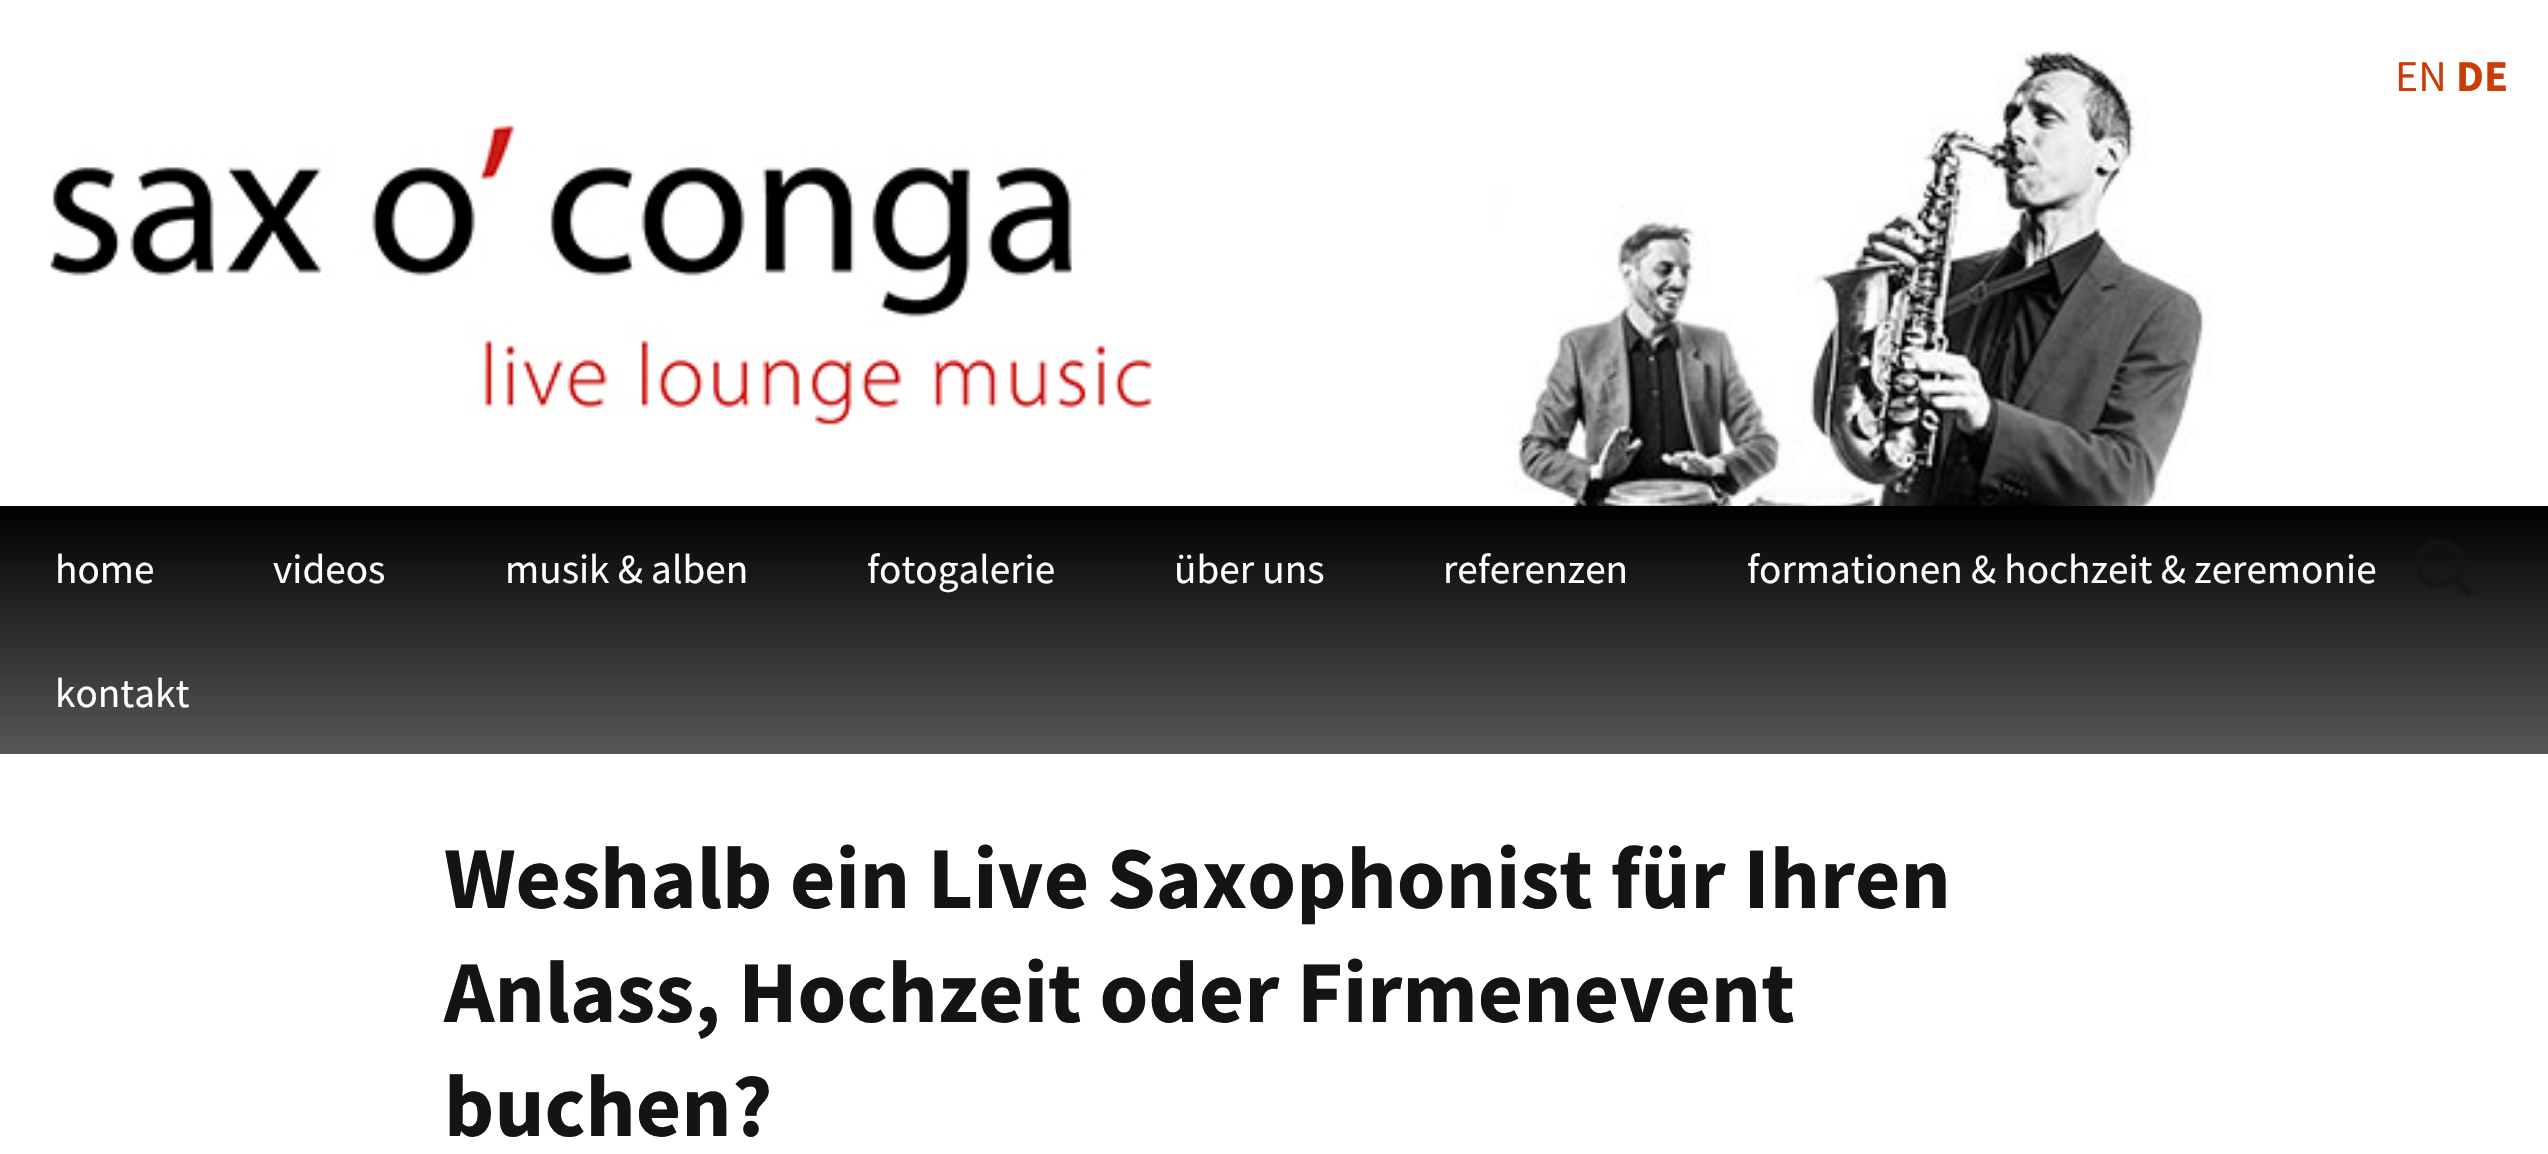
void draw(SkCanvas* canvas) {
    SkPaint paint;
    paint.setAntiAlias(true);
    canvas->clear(0xFFFFFFFF);
    SkFont font1(fontMgr->matchFamilyStyle("Source Sans Pro", SkFontStyle::Normal()), 44);
    font1.setSubpixel(true);
    paint.setColor(0xFFCA3C08);
    canvas->drawString("EN", 2395, 91, font1, paint);
    SkFont font2(fontMgr->matchFamilyStyle("Source Sans Pro", SkFontStyle::Bold()), 44);
    font2.setSubpixel(true);
    canvas->drawString("DE", 2456, 91, font2, paint);
    canvas->drawImageRect(SkImages::DeferredFromEncodedData(SkData::MakeFromFileName("img1.png")), SkRect::MakeXYWH(50, 51, 2162, 455), SkSamplingOptions());
    {
        const SkColor colors[] = {0xFF000000, 0xFF585757};
        const float stops[] = {0, 1};
        const SkPoint ends[] = {{1275, 506}, {1275, 754}};
        paint.setShader(SkGradientShader::MakeLinear(ends, colors, stops, 2, SkTileMode::kClamp));
        paint.setAlpha(255);
    }
    canvas->drawRect(SkRect::MakeXYWH(0, 506, 2548, 248), paint);
    SkFont font3(fontMgr->matchFamilyStyle("Source Sans Pro", SkFontStyle::Normal()), 41.25f);
    font3.setSubpixel(true);
    paint.setShader(nullptr);
    paint.setColor(0xFFFFFFFF);
    canvas->drawString("home", 55, 583, font3, paint);
    canvas->drawString("videos", 273, 583, font3, paint);
    canvas->drawString("musik & alben", 505, 583, font3, paint);
    canvas->drawString("fotogalerie", 867, 583, font3, paint);
    canvas->drawString("über uns", 1174, 583, font3, paint);
    canvas->drawString("referenzen", 1443, 583, font3, paint);
    canvas->drawString("formationen & hochzeit & zeremonie", 1747, 583, font3, paint);
    canvas->drawString("kontakt", 55, 707, font3, paint);
    canvas->drawImageRect(SkImages::DeferredFromEncodedData(SkData::MakeFromFileName("img2.png")), SkRect::MakeXYWH(2417, 539, 56, 58), SkSamplingOptions());
    SkFont font4(fontMgr->matchFamilyStyle("Source Sans Pro", SkFontStyle::Bold()), 88);
    font4.setSubpixel(true);
    paint.setColor(0xFF141412);
    canvas->drawString("Weshalb ein Live Saxophonist für Ihren", 444, 908, font4, paint);
    canvas->drawString("Anlass, Hochzeit oder Firmenevent", 444, 1022, font4, paint);
    canvas->drawString("buchen?", 444, 1136, font4, paint);
}
